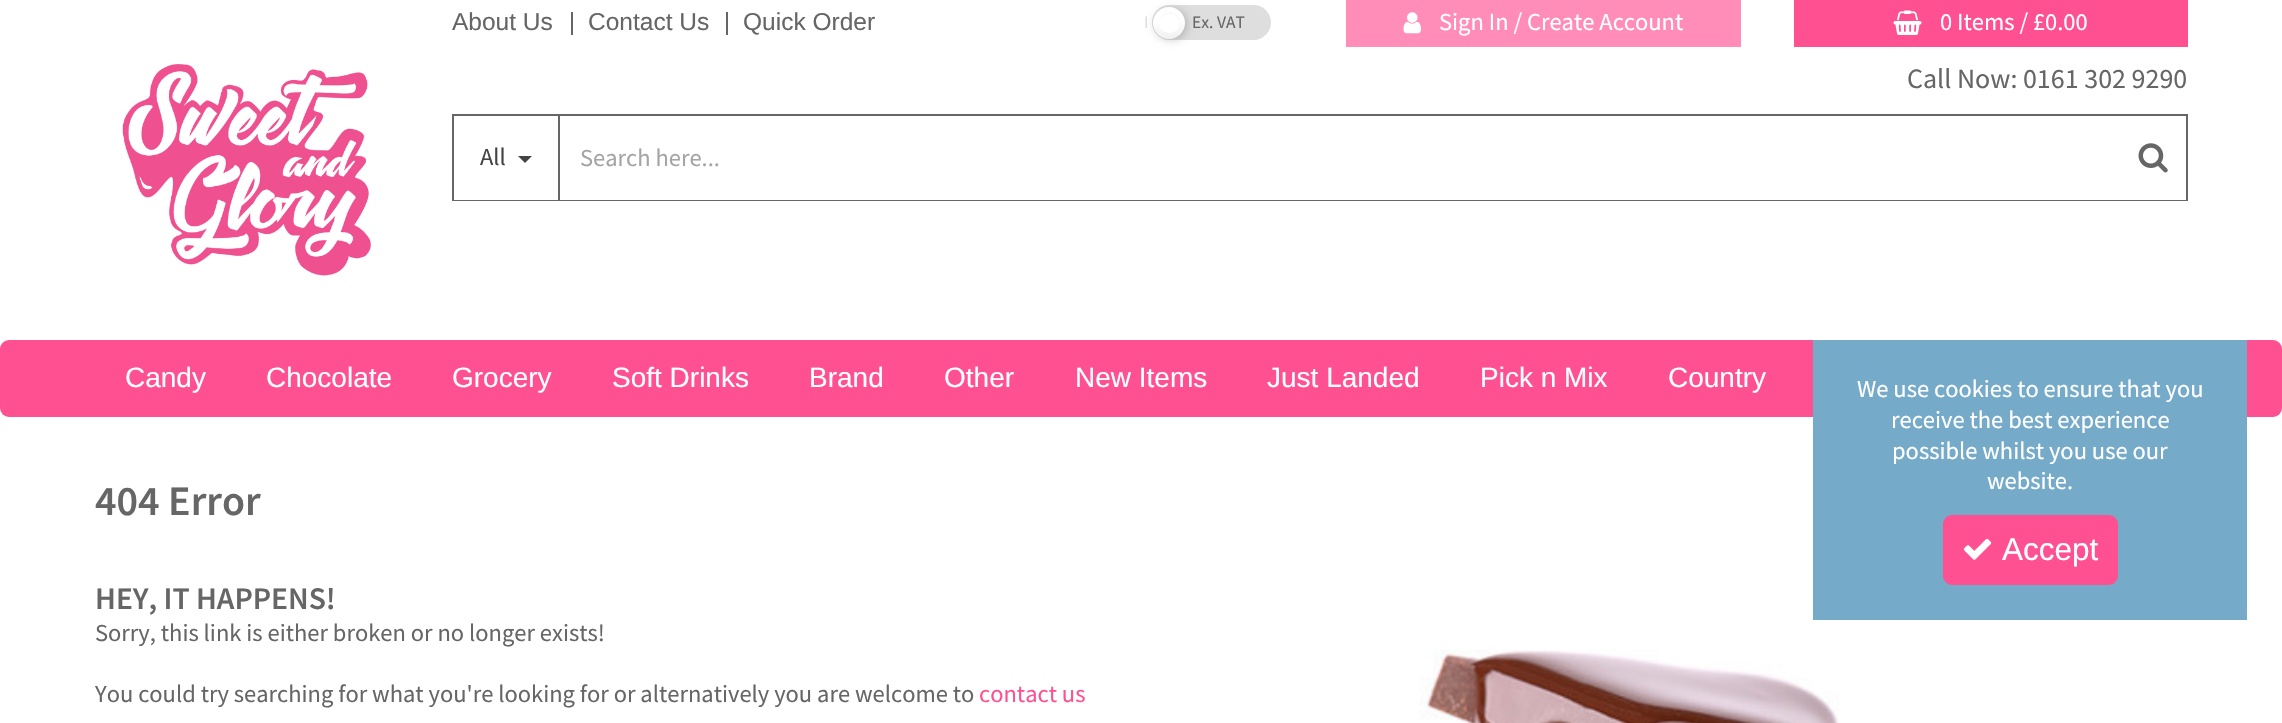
void draw(SkCanvas* canvas) {
    SkPaint paint;
    paint.setAntiAlias(true);
    canvas->clear(0xFFFFFFFF);
    canvas->drawImageRect(SkImages::DeferredFromEncodedData(SkData::MakeFromFileName("img1.png")), SkRect::MakeXYWH(122, 64, 249, 212), SkSamplingOptions());
    paint.setColor(0xFF666666);
    canvas->drawRect(SkRect::MakeXYWH(571, 12, 2, 23), paint);
    SkFont font1(fontMgr->matchFamilyStyle("Liberation Sans", SkFontStyle::Normal()), 24.5f);
    font1.setSubpixel(true);
    canvas->drawString("About Us", 452, 30, font1, paint);
    canvas->drawRect(SkRect::MakeXYWH(726, 12, 2, 23), paint);
    canvas->drawString("Contact Us", 588, 30, font1, paint);
    canvas->drawString("Quick Order", 743, 30, font1, paint);
    paint.setColor(0xFFDEDEDE);
    canvas->drawRoundRect(SkRect::MakeXYWH(1152, 5, 119, 35), 17.5f, 17.5f, paint);
    paint.setColor(0x33000000);
    paint.setMaskFilter(SkMaskFilter::MakeBlur(kNormal_SkBlurStyle, 4.5f));
    canvas->drawRoundRect(SkRect::MakeXYWH(1155, 9, 32, 31), 15.5f, 15.5f, paint);
    paint.setMaskFilter(nullptr);
    {
        const SkColor colors[] = {0xFFFFFFFF, 0xFFF0F0F0};
        const float stops[] = {0.4f, 1};
        const SkPoint ends[] = {{1169, 7}, {1169, 39}};
        paint.setShader(SkGradientShader::MakeLinear(ends, colors, stops, 2, SkTileMode::kClamp));
        paint.setAlpha(255);
    }
    canvas->drawCircle(1169, 23, 16, paint);
    paint.setShader(nullptr);
    paint.setColor(0xFFFFFFFF);
    canvas->drawCircle(1169.5f, 22.5f, 10.5f, paint);
    paint.setColor(0xFFFAFAFA);
    canvas->drawPath(SkPathBuilder().moveTo(1169, 14).cubicTo(1176.5f, 14, 1180, 20.5f, 1179.5f, 26).cubicTo(1184.5f, 12, 1162, 6, 1159, 20.5f).cubicTo(1160.5f, 17, 1164, 14, 1169, 14).close().detach(), paint);
    SkFont font2(fontMgr->matchFamilyStyle("Source Sans Pro", SkFontStyle::Normal()), 17.5f);
    font2.setSubpixel(true);
    paint.setColor(0xFFDEDEDE);
    canvas->drawString("I", 1144, 28, font2, paint);
    paint.setColor(0xFF666666);
    canvas->drawString("Ex. VAT", 1192, 28, font2, paint);
    paint.setColor(0xFFFF8DB8);
    canvas->drawRect(SkRect::MakeXYWH(1346, 0, 395, 47), paint);
    canvas->drawImageRect(SkImages::DeferredFromEncodedData(SkData::MakeFromFileName("img2.png")), SkRect::MakeXYWH(1403, 12, 18, 22), SkSamplingOptions());
    SkFont font3(fontMgr->matchFamilyStyle("Source Sans Pro", SkFontStyle::Normal()), 24.5f);
    font3.setSubpixel(true);
    paint.setColor(0xFFFFFFFF);
    canvas->drawString("Sign In / Create Account", 1439, 30, font3, paint);
    paint.setColor(0xFFFF5091);
    canvas->drawRect(SkRect::MakeXYWH(1794, 0, 394, 47), paint);
    canvas->drawImageRect(SkImages::DeferredFromEncodedData(SkData::MakeFromFileName("img3.png")), SkRect::MakeXYWH(1893, 10, 29, 25), SkSamplingOptions());
    paint.setColor(0xFFFFFFFF);
    canvas->drawString("0 Items / £0.00", 1940, 30, font3, paint);
    SkFont font4(fontMgr->matchFamilyStyle("Source Sans Pro", SkFontStyle::Normal()), 28);
    font4.setSubpixel(true);
    paint.setColor(0xFF666666);
    canvas->drawString("Call Now: 0161 302 9290", 1907, 88, font4, paint);
    canvas->drawRect(SkRect::MakeXYWH(452, 114, 106, 2), paint);
    canvas->drawRect(SkRect::MakeXYWH(452, 200, 106, 1), paint);
    canvas->drawRect(SkRect::MakeXYWH(452, 114, 2, 87), paint);
    paint.setColor(0xFF444444);
    canvas->drawString("All", 480, 165, font3, paint);
    canvas->drawPath(SkPathBuilder().moveTo(518, 156).lineTo(532, 156).lineTo(525, 163).close().detach(), paint);
    paint.setColor(0xFF666666);
    canvas->drawRect(SkRect::MakeXYWH(558, 114, 1630, 2), paint);
    canvas->drawRect(SkRect::MakeXYWH(2186, 114, 2, 87), paint);
    canvas->drawRect(SkRect::MakeXYWH(558, 200, 1630, 1), paint);
    canvas->drawImageRect(SkImages::DeferredFromEncodedData(SkData::MakeFromFileName("img4.png")), SkRect::MakeXYWH(2138, 143, 30, 30), SkSamplingOptions());
    canvas->drawRect(SkRect::MakeXYWH(558, 114, 2, 87), paint);
    paint.setColor(0xFFA5A5A5);
    canvas->drawString("Search here...", 580, 166, font3, paint);
    paint.setColor(0xFFFF5091);
    canvas->drawRoundRect(SkRect::MakeXYWH(0, 340, 2282, 77), 9, 9, paint);
    SkFont font5(fontMgr->matchFamilyStyle("Liberation Sans", SkFontStyle::Normal()), 28);
    font5.setSubpixel(true);
    paint.setColor(0xFFFFFFFF);
    canvas->drawString("Candy", 125, 387, font5, paint);
    canvas->drawString("Chocolate", 266, 387, font5, paint);
    canvas->drawString("Grocery", 452, 387, font5, paint);
    canvas->drawString("Soft Drinks", 612, 387, font5, paint);
    canvas->drawString("Brand", 809, 387, font5, paint);
    canvas->drawString("Other", 944, 387, font5, paint);
    canvas->drawString("New Items", 1075, 387, font5, paint);
    canvas->drawString("Just Landed", 1267, 387, font5, paint);
    canvas->drawString("Pick n Mix", 1480, 387, font5, paint);
    canvas->drawString("Country", 1668, 387, font5, paint);
    SkFont font6(fontMgr->matchFamilyStyle("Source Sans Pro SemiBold", SkFontStyle(600, SkFontStyle::kNormal_Width, SkFontStyle::kUpright_Slant)), 42);
    font6.setSubpixel(true);
    paint.setColor(0xFF666666);
    canvas->drawString("404 Error", 95, 515, font6, paint);
    SkFont font7(fontMgr->matchFamilyStyle("Source Sans Pro SemiBold", SkFontStyle(600, SkFontStyle::kNormal_Width, SkFontStyle::kUpright_Slant)), 31.5f);
    font7.setSubpixel(true);
    canvas->drawString("HEY, IT HAPPENS!", 95, 609, font7, paint);
    canvas->drawString("Sorry, this link is either broken or no longer exists!", 95, 641, font3, paint);
    canvas->drawString("You could try searching for what you're looking for or alternatively you are welcome to", 95, 702, font3, paint);
    paint.setColor(0xFFFF5091);
    canvas->drawString("contact us", 979, 702, font3, paint);
    canvas->drawImageRect(SkImages::DeferredFromEncodedData(SkData::MakeFromFileName("img5.png")), SkRect::MakeXYWH(1419, 649, 420, 74), SkSamplingOptions());
    paint.setColor(0xFF75AAC9);
    canvas->drawRect(SkRect::MakeXYWH(1813, 340, 434, 280), paint);
    paint.setColor(0xFFFFFFFF);
    canvas->drawString("We use cookies to ensure that you", 1857, 397, font3, paint);
    canvas->drawString("receive the best experience", 1891, 428, font3, paint);
    canvas->drawString("possible whilst you use our", 1892, 459, font3, paint);
    canvas->drawString("website.", 1987, 489, font3, paint);
    paint.setColor(0xFFFF5091);
    canvas->drawRoundRect(SkRect::MakeXYWH(1943, 515, 175, 70), 9, 9, paint);
    canvas->drawImageRect(SkImages::DeferredFromEncodedData(SkData::MakeFromFileName("img6.png")), SkRect::MakeXYWH(1963, 538, 29, 22), SkSamplingOptions());
    SkFont font8(fontMgr->matchFamilyStyle("Liberation Sans", SkFontStyle::Normal()), 31.5f);
    font8.setSubpixel(true);
    paint.setColor(0xFFFFFFFF);
    canvas->drawString("Accept", 2002, 560, font8, paint);
}
